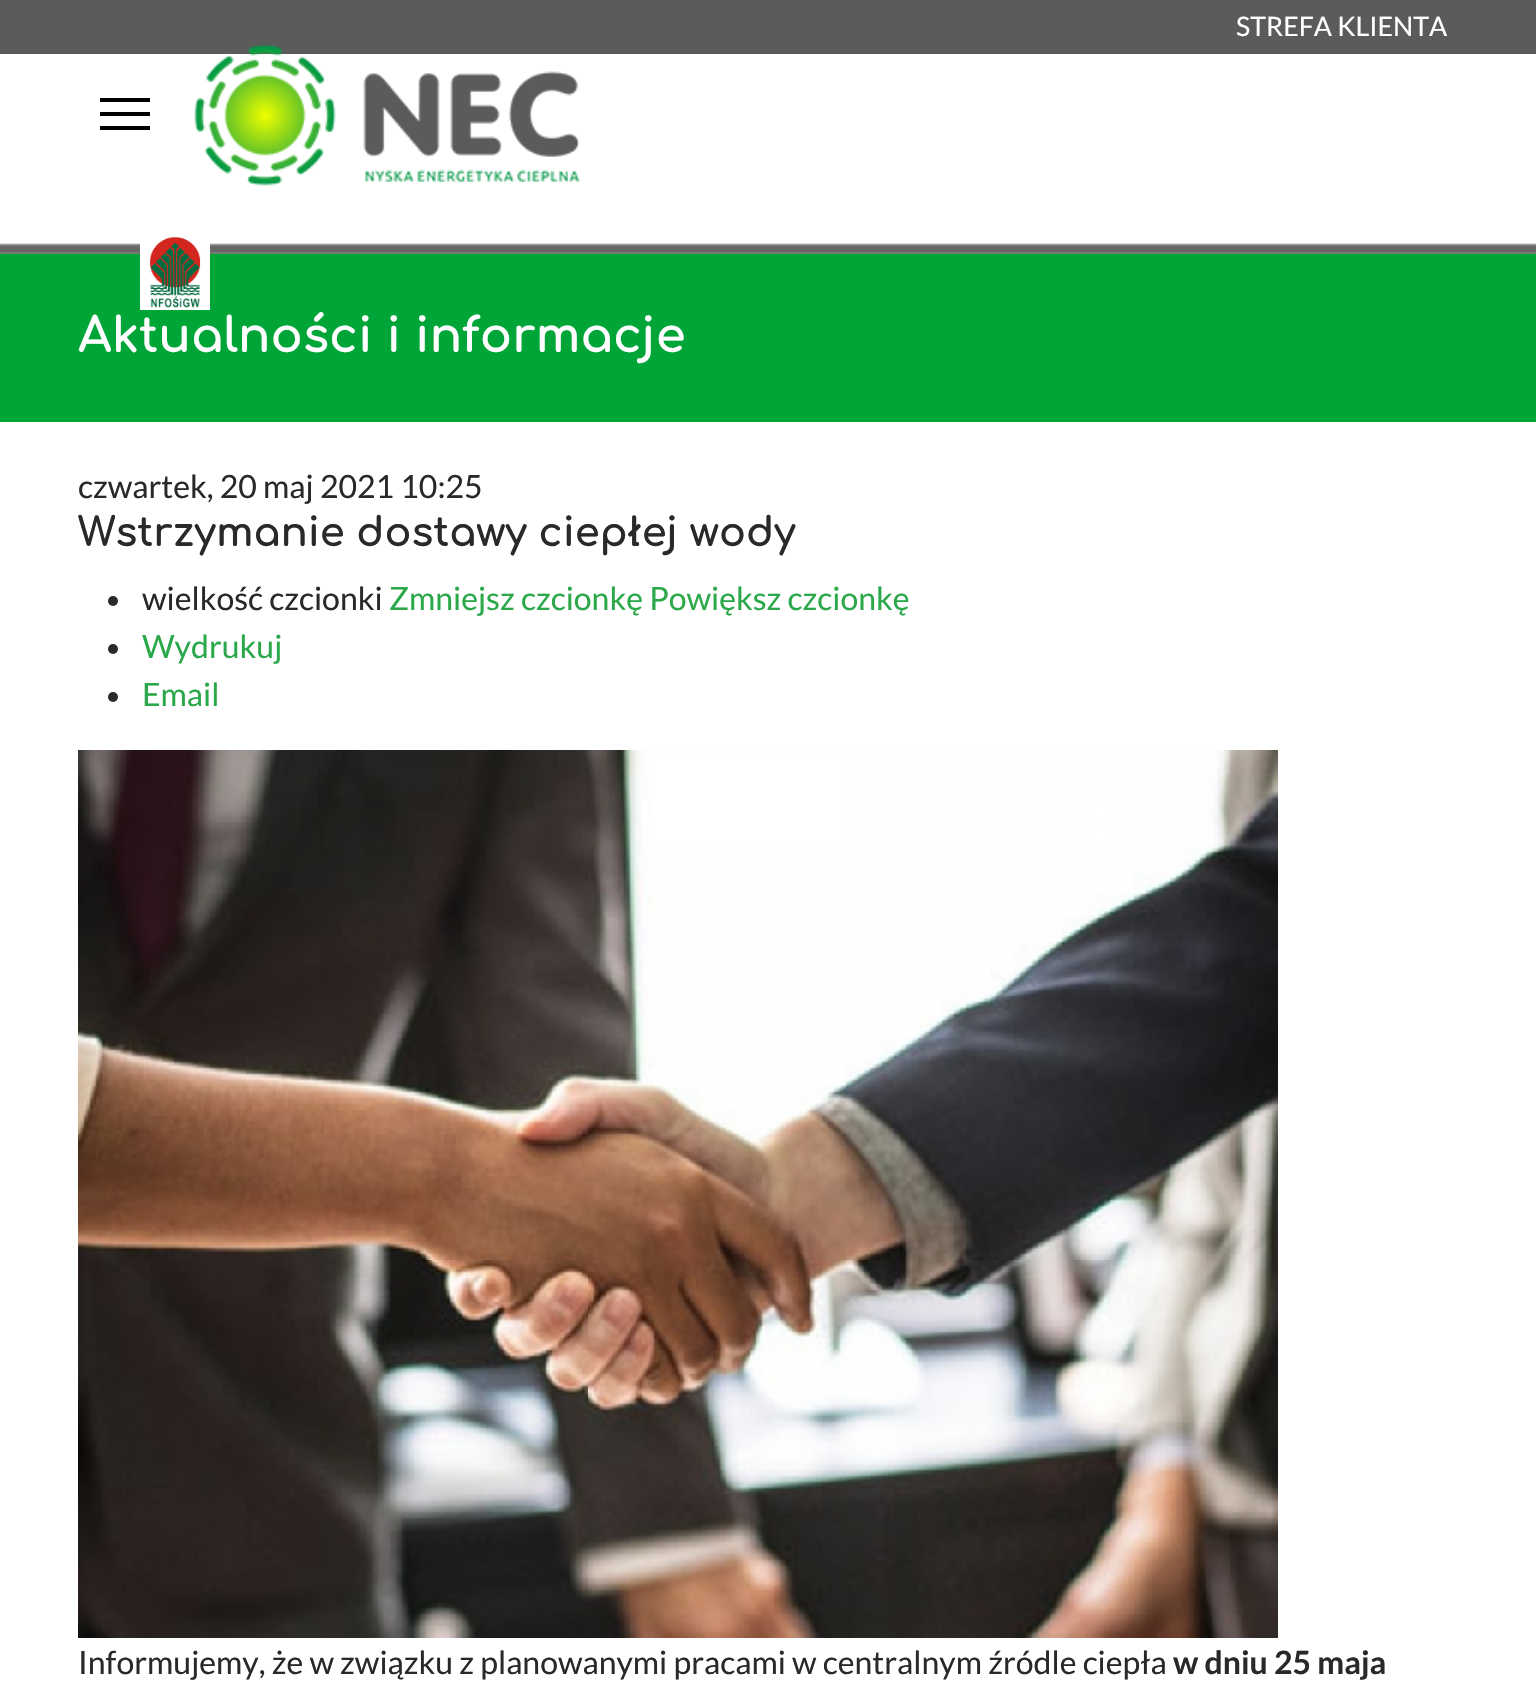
void draw(SkCanvas* canvas) {
    SkPaint paint;
    paint.setAntiAlias(true);
    canvas->clear(0xFFFFFFFF);
    paint.setColor(0xFF5B5B5B);
    canvas->drawRect(SkRect::MakeXYWH(0, 0, 1536, 54), paint);
    SkFont font1(fontMgr->matchFamilyStyle("Lato", SkFontStyle::Normal()), 26.75f);
    font1.setSubpixel(true);
    paint.setColor(0xFFFFFFFF);
    canvas->drawString("STREFA KLIENTA", 1236, 36, font1, paint);
    canvas->drawImageRect(SkImages::DeferredFromEncodedData(SkData::MakeFromFileName("img1.png")), SkRect::MakeXYWH(0, 243, 1536, 11), SkSamplingOptions());
    paint.setColor(0xFF000000);
    canvas->drawRect(SkRect::MakeXYWH(100, 98, 50, 4), paint);
    canvas->drawRect(SkRect::MakeXYWH(100, 112, 50, 4), paint);
    canvas->drawRect(SkRect::MakeXYWH(100, 126, 50, 4), paint);
    canvas->drawImageRect(SkImages::DeferredFromEncodedData(SkData::MakeFromFileName("img2.png")), SkRect::MakeXYWH(194, 44, 386, 142), SkSamplingOptions());
    paint.setColor(0xFF00A537);
    canvas->drawRect(SkRect::MakeXYWH(0, 254, 1536, 168), paint);
    canvas->drawImageRect(SkImages::DeferredFromEncodedData(SkData::MakeFromFileName("img3.png")), SkRect::MakeXYWH(140, 236, 70, 74), SkSamplingOptions());
    SkFont font2(fontMgr->matchFamilyStyle("Comfortaa", SkFontStyle::Bold()), 48);
    font2.setSubpixel(true);
    paint.setColor(0xFFFFFFFF);
    canvas->drawString("Aktualności i informacje", 78, 352, font2, paint);
    SkFont font3(fontMgr->matchFamilyStyle("Lato", SkFontStyle::Normal()), 32);
    font3.setSubpixel(true);
    paint.setColor(0xFF292929);
    canvas->drawString("czwartek, 20 maj 2021 10:25", 78, 498, font3, paint);
    SkFont font4(fontMgr->matchFamilyStyle("Comfortaa", SkFontStyle::Bold()), 40);
    font4.setSubpixel(true);
    canvas->drawString("Wstrzymanie dostawy ciepłej wody", 78, 546, font4, paint);
    canvas->drawCircle(113, 601, 5, paint);
    canvas->drawString("wielkość czcionki", 142, 610, font3, paint);
    paint.setColor(0xFF2BA84A);
    canvas->drawString("Zmniejsz czcionkę Powiększ czcionkę", 389, 610, font3, paint);
    paint.setColor(0xFF292929);
    canvas->drawCircle(113, 649, 5, paint);
    paint.setColor(0xFF2BA84A);
    canvas->drawString("Wydrukuj", 142, 658, font3, paint);
    paint.setColor(0xFF292929);
    canvas->drawCircle(113, 697, 5, paint);
    paint.setColor(0xFF2BA84A);
    canvas->drawString("Email", 142, 706, font3, paint);
    canvas->drawImageRect(SkImages::DeferredFromEncodedData(SkData::MakeFromFileName("img4.png")), SkRect::MakeXYWH(78, 750, 1200, 888), SkSamplingOptions());
    paint.setColor(0xFF292929);
    canvas->drawString("Informujemy, że w związku z planowanymi pracami w centralnym źródle ciepła", 78, 1674, font3, paint);
    SkFont font5(fontMgr->matchFamilyStyle("Lato", SkFontStyle::Bold()), 32);
    font5.setSubpixel(true);
    canvas->drawString("w dniu 25 maja", 1173, 1674, font5, paint);
}
